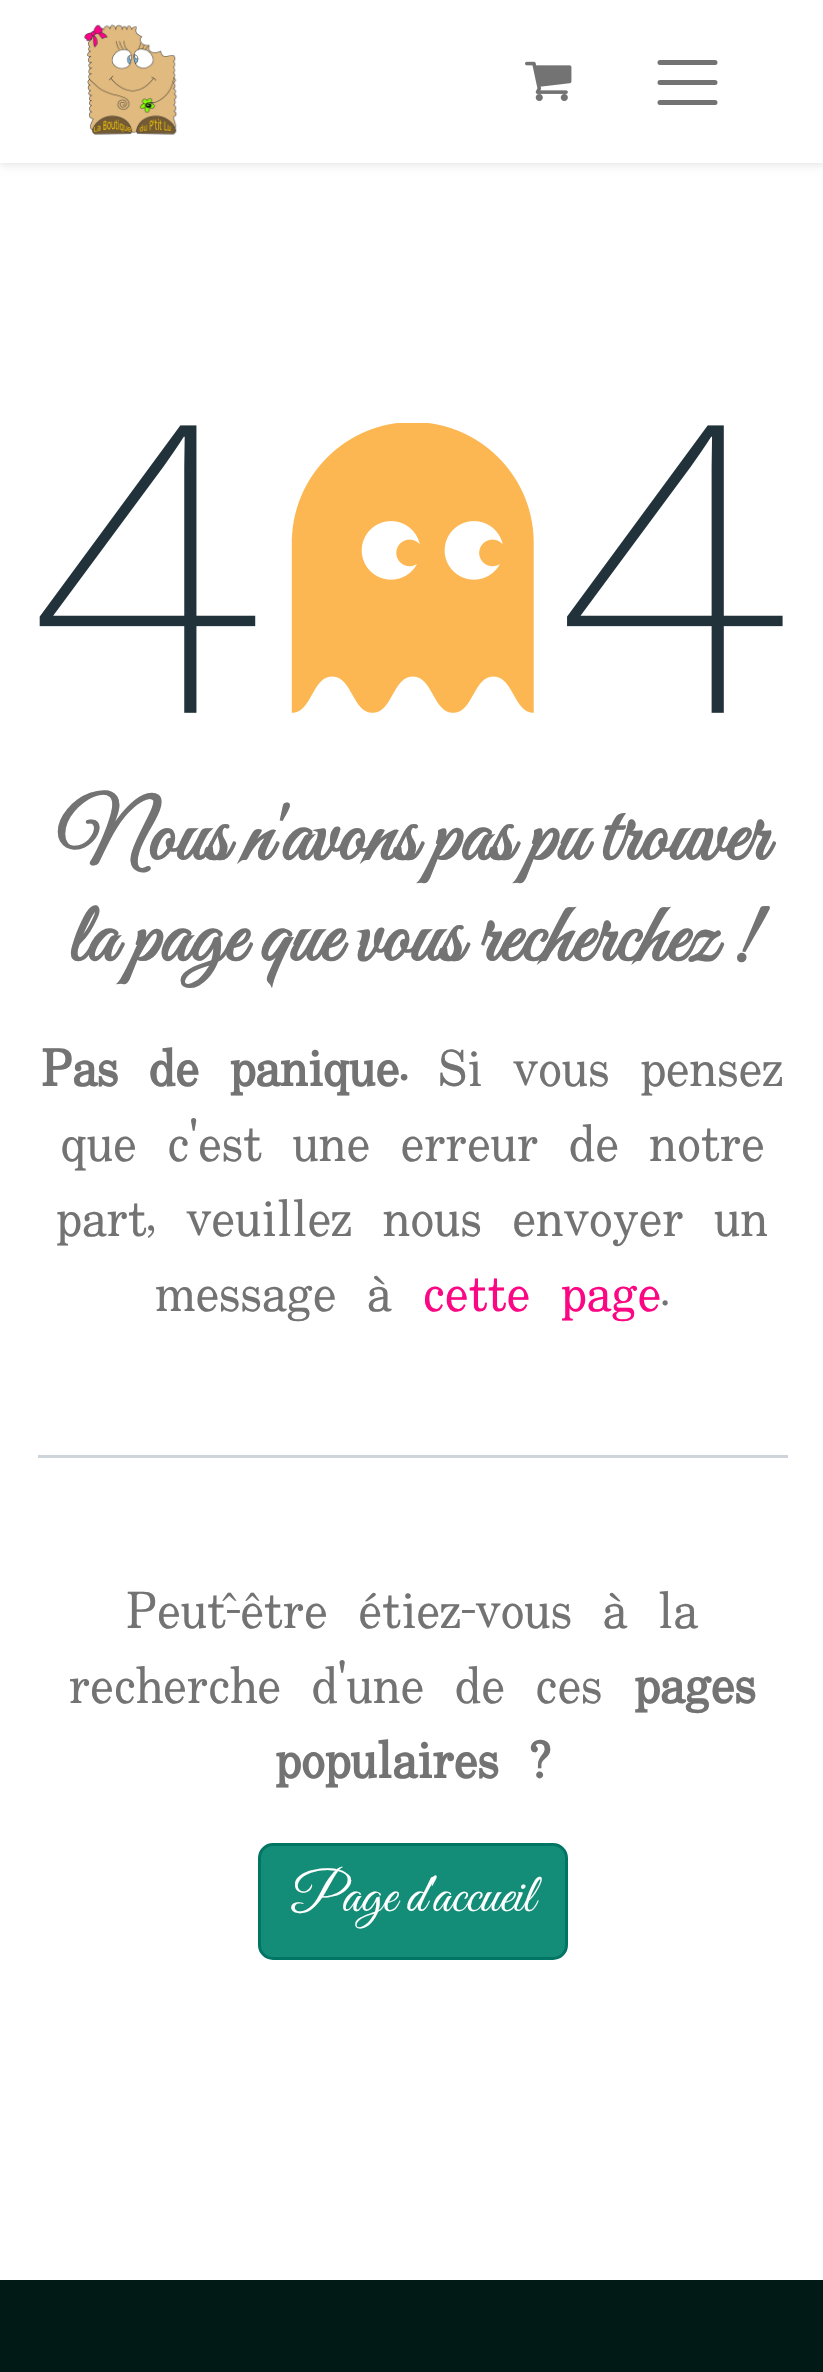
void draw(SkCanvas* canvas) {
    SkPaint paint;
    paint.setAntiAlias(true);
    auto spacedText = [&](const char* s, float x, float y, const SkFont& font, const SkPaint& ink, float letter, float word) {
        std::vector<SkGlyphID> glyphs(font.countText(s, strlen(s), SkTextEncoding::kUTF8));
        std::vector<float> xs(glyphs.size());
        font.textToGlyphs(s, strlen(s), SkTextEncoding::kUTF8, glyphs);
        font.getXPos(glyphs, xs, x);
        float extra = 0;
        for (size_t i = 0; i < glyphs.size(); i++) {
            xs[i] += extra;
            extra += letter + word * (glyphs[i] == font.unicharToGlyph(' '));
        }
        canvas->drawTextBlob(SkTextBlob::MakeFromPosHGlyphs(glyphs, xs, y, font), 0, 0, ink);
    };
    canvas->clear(0xFFFFFFFF);
    paint.setColor(0x1A000000);
    paint.setMaskFilter(SkMaskFilter::MakeBlur(kNormal_SkBlurStyle, 4));
    canvas->drawRect(SkRect::MakeXYWH(0, 3, 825, 162), paint);
    paint.setMaskFilter(nullptr);
    paint.setColor(0xFFFFFFFF);
    canvas->drawRect(SkRect::MakeXYWH(0, 0, 823, 163), paint);
    canvas->drawImageRect(SkImages::DeferredFromEncodedData(SkData::MakeFromFileName("img1.png")), SkRect::MakeXYWH(84, 24, 94, 111), SkSamplingOptions());
    canvas->drawImageRect(SkImages::DeferredFromEncodedData(SkData::MakeFromFileName("img2.png")), SkRect::MakeXYWH(525, 61, 47, 40), SkSamplingOptions());
    paint.setStyle(SkPaint::kStroke_Style);
    paint.setStrokeWidth(5);
    paint.setStrokeCap(SkPaint::kRound_Cap);
    paint.setColor(0xFF737373);
    canvas->drawPath(SkPathBuilder().moveTo(660, 62.5f).lineTo(715, 62.5f).moveTo(660, 82.5f).lineTo(715, 82.5f).moveTo(660, 102.5f).lineTo(715, 102.5f).detach(), paint);
    canvas->drawImageRect(SkImages::DeferredFromEncodedData(SkData::MakeFromFileName("img3.png")), SkRect::MakeXYWH(39, 423, 744, 290), SkSamplingOptions());
    SkFont font1(fontMgr->matchFamilyStyle("Great Vibes", SkFontStyle::Bold()), 84.75f);
    font1.setSubpixel(true);
    paint.setStyle(SkPaint::kFill_Style);
    canvas->drawString("Nous n'avons pas pu trouver", 58, 860, font1, paint);
    spacedText("la page que vous recherchez !", 68, 961, font1, paint, 0, -0.25f);
    SkFont font2(fontMgr->matchFamilyStyle("Uchen", SkFontStyle::Bold()), 50);
    font2.setSubpixel(true);
    canvas->drawString("Pas de panique.", 41, 1086, font2, paint);
    SkFont font3(fontMgr->matchFamilyStyle("Uchen", SkFontStyle::Normal()), 50);
    font3.setSubpixel(true);
    canvas->drawString("Si vous pensez", 438, 1086, font3, paint);
    canvas->drawString("que c'est une erreur de notre", 61, 1161, font3, paint);
    canvas->drawString("part, veuillez nous envoyer un", 56, 1236, font3, paint);
    canvas->drawString("message à", 155, 1311, font3, paint);
    paint.setColor(0xFFFC0783);
    canvas->drawString("cette page", 423, 1311, font3, paint);
    paint.setColor(0xFF737373);
    canvas->drawString(".", 661, 1311, font3, paint);
    paint.setColor(0xFFCED4DA);
    canvas->drawRect(SkRect::MakeXYWH(38, 1455, 750, 3), paint);
    paint.setColor(0xFF737373);
    canvas->drawString("Peut-être étiez-vous à la", 126, 1628, font3, paint);
    canvas->drawString("recherche d'une de ces", 69, 1703, font3, paint);
    canvas->drawString("pages", 634, 1703, font2, paint);
    canvas->drawString("populaires ?", 275, 1778, font2, paint);
    paint.setColor(0xFF138D77);
    canvas->drawRoundRect(SkRect::MakeXYWH(259.5f, 1844.5f, 307, 114), 13.5f, 13.5f, paint);
    paint.setStyle(SkPaint::kStroke_Style);
    paint.setStrokeWidth(3);
    paint.setStrokeCap(SkPaint::kButt_Cap);
    paint.setColor(0xFF007564);
    canvas->drawRoundRect(SkRect::MakeXYWH(259.5f, 1844.5f, 307, 114), 13.5f, 13.5f, paint);
    SkFont font4(fontMgr->matchFamilyStyle("Great Vibes", SkFontStyle::Normal()), 54.5f);
    font4.setSubpixel(true);
    paint.setStyle(SkPaint::kFill_Style);
    paint.setColor(0xFFFFFFFF);
    canvas->drawString("Page d'accueil", 291, 1911, font4, paint);
    paint.setColor(0xFF011A16);
    canvas->drawRect(SkRect::MakeXYWH(0, 2280, 823, 92), paint);
}
